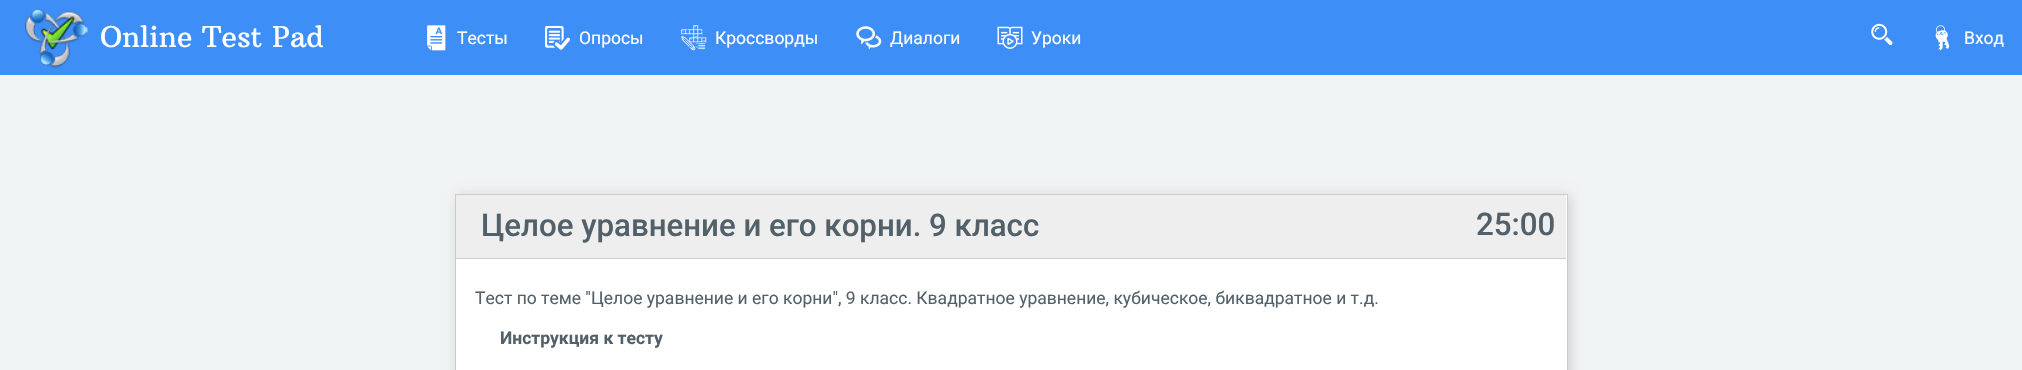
void draw(SkCanvas* canvas) {
    SkPaint paint;
    paint.setAntiAlias(true);
    canvas->clear(0xFF3E8EF7);
    canvas->drawImageRect(SkImages::DeferredFromEncodedData(SkData::MakeFromFileName("img1.png")), SkRect::MakeXYWH(25, 8, 63, 60), SkSamplingOptions());
    SkFont font1(fontMgr->matchFamilyStyle("Arbutus Slab", SkFontStyle::Normal()), 28.75f);
    font1.setSubpixel(true);
    paint.setColor(0xFFFFFFFF);
    canvas->drawString("Online Test Pad", 100, 47, font1, paint);
    canvas->drawImageRect(SkImages::DeferredFromEncodedData(SkData::MakeFromFileName("img2.png")), SkRect::MakeXYWH(427, 25, 19, 26), SkSamplingOptions());
    SkFont font2(fontMgr->matchFamilyStyle("Roboto", SkFontStyle::Normal()), 17.5f);
    font2.setSubpixel(true);
    canvas->drawString("Тесты", 457, 44, font2, paint);
    canvas->drawImageRect(SkImages::DeferredFromEncodedData(SkData::MakeFromFileName("img3.png")), SkRect::MakeXYWH(545, 25, 25, 25), SkSamplingOptions());
    canvas->drawString("Опросы", 579, 44, font2, paint);
    canvas->drawImageRect(SkImages::DeferredFromEncodedData(SkData::MakeFromFileName("img4.png")), SkRect::MakeXYWH(681, 25, 26, 26), SkSamplingOptions());
    canvas->drawString("Кроссворды", 715, 44, font2, paint);
    canvas->drawImageRect(SkImages::DeferredFromEncodedData(SkData::MakeFromFileName("img5.png")), SkRect::MakeXYWH(856, 26, 26, 24), SkSamplingOptions());
    canvas->drawString("Диалоги", 890, 44, font2, paint);
    canvas->drawImageRect(SkImages::DeferredFromEncodedData(SkData::MakeFromFileName("img6.png")), SkRect::MakeXYWH(997, 26, 26, 23), SkSamplingOptions());
    canvas->drawString("Уроки", 1031, 44, font2, paint);
    canvas->drawImageRect(SkImages::DeferredFromEncodedData(SkData::MakeFromFileName("img7.png")), SkRect::MakeXYWH(1871, 23, 22, 23), SkSamplingOptions());
    canvas->drawImageRect(SkImages::DeferredFromEncodedData(SkData::MakeFromFileName("img8.png")), SkRect::MakeXYWH(1935, 25, 15, 26), SkSamplingOptions());
    canvas->drawString("Вход", 1964, 44, font2, paint);
    paint.setColor(0xFFF1F4F5);
    canvas->drawRect(SkRect::MakeXYWH(0, 75, 2022, 295), paint);
    paint.setColor(0xFFCCCCCC);
    paint.setMaskFilter(SkMaskFilter::MakeBlur(kNormal_SkBlurStyle, 6));
    canvas->drawRect(SkRect::MakeXYWH(458, 196, 1112, 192), paint);
    paint.setMaskFilter(nullptr);
    paint.setColor(0xFFFFFFFF);
    canvas->drawRect(SkRect::MakeXYWH(455.5f, 194.5f, 1112, 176), paint);
    paint.setStyle(SkPaint::kStroke_Style);
    paint.setStrokeWidth(1);
    paint.setColor(0xFFCCCCCC);
    canvas->drawRect(SkRect::MakeXYWH(455.5f, 194.5f, 1112, 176), paint);
    paint.setStyle(SkPaint::kFill_Style);
    paint.setColor(0xFFEEEEEE);
    canvas->drawRect(SkRect::MakeXYWH(456, 195, 1110, 63), paint);
    paint.setColor(0xFFCCCCCC);
    canvas->drawRect(SkRect::MakeXYWH(456, 258, 1110, 1), paint);
    SkFont font3(fontMgr->matchFamilyStyle("Roboto", SkFontStyle(500, SkFontStyle::kNormal_Width, SkFontStyle::kUpright_Slant)), 31.25f);
    font3.setSubpixel(true);
    paint.setColor(0xFF526069);
    canvas->drawString("Целое уравнение и его корни. 9 класс", 481, 236, font3, paint);
    canvas->drawString("25:00", 1476, 235, font3, paint);
    canvas->drawString("Тест по теме \"Целое уравнение и его корни\", 9 класс. Квадратное уравнение, кубическое, биквадратное и т.д.", 475, 304, font2, paint);
    SkFont font4(fontMgr->matchFamilyStyle("Roboto", SkFontStyle::Bold()), 17.5f);
    font4.setSubpixel(true);
    canvas->drawString("Инструкция к тесту", 500, 344, font4, paint);
}
